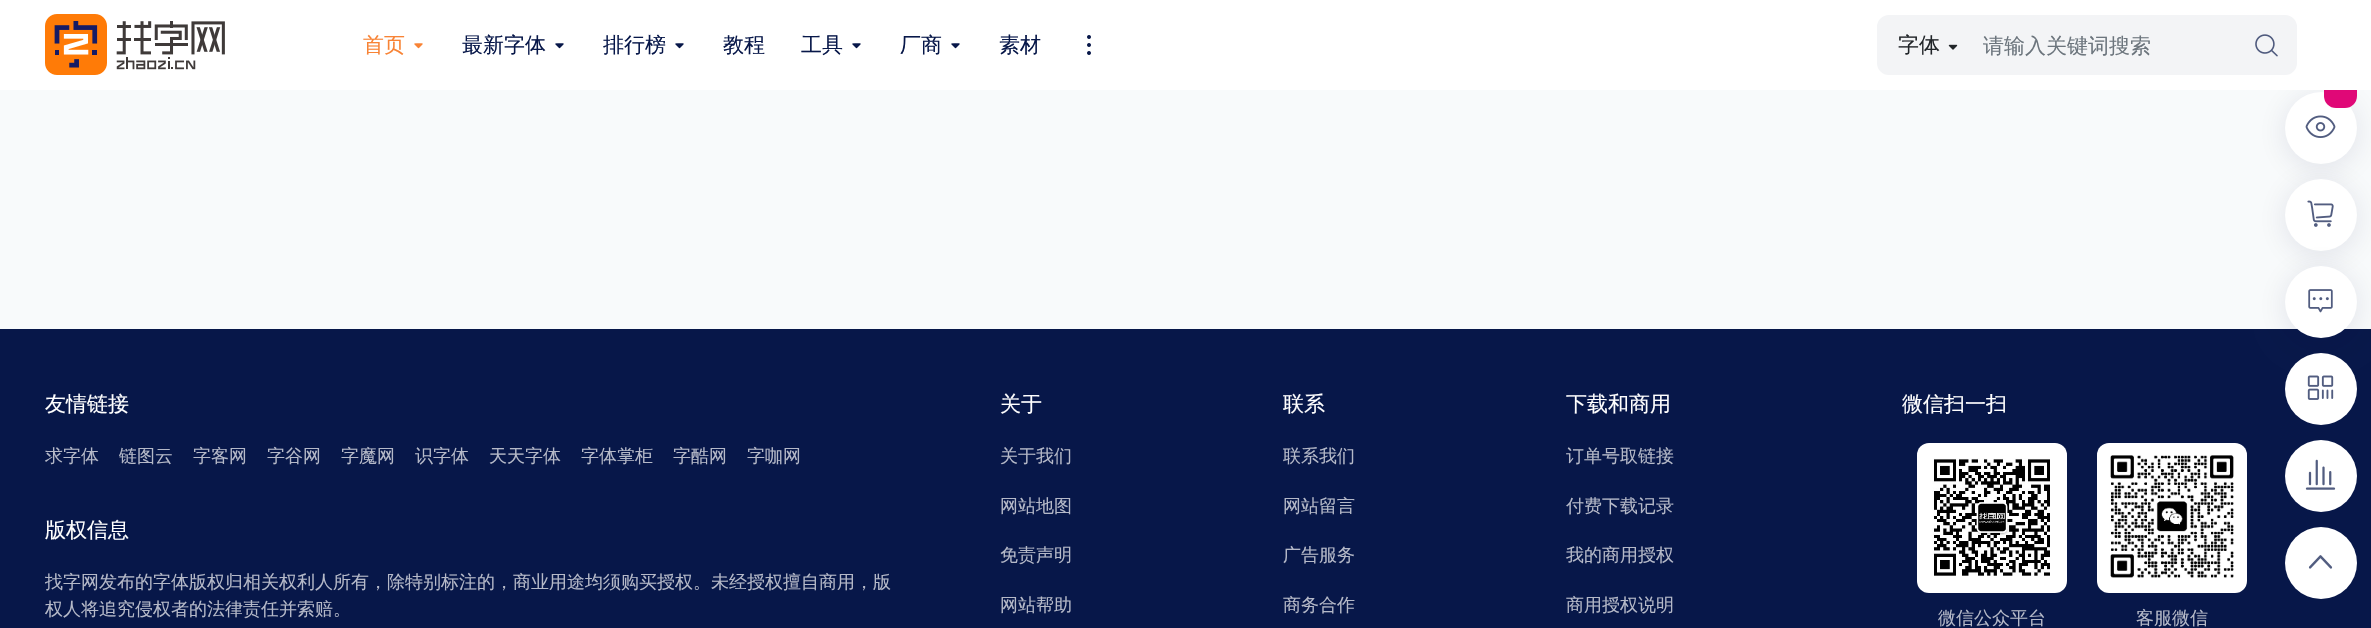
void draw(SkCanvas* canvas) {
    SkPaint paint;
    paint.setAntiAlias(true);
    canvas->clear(0xFFF8FAFB);
    paint.setColor(0x1A071749);
    paint.setMaskFilter(SkMaskFilter::MakeBlur(kNormal_SkBlurStyle, 15));
    canvas->drawRoundRect(SkRect::MakeXYWH(2285, 96, 72, 72), 36, 36, paint);
    paint.setMaskFilter(nullptr);
    paint.setColor(0xFFFFFFFF);
    canvas->drawCircle(2321, 128, 36, paint);
    paint.setColor(0xFFE00877);
    canvas->drawRoundRect(SkRect::MakeXYWH(2324, 75, 33, 33), 12, 12, paint);
    paint.setColor(0xFFFFFFFF);
    canvas->drawRect(SkRect::MakeXYWH(0, 0, 2371, 90), paint);
    canvas->drawImageRect(SkImages::DeferredFromEncodedData(SkData::MakeFromFileName("img1.png")), SkRect::MakeXYWH(45, 14, 180, 61), SkSamplingOptions());
    SkFont font1(fontMgr->matchFamilyStyle("WenQuanYi Zen Hei", SkFontStyle(500, SkFontStyle::kNormal_Width, SkFontStyle::kUpright_Slant)), 21);
    font1.setSubpixel(true);
    paint.setColor(0xFFF88335);
    canvas->drawString("首页", 363, 52, font1, paint);
    canvas->drawImageRect(SkImages::DeferredFromEncodedData(SkData::MakeFromFileName("img2.png")), SkRect::MakeXYWH(414, 43, 9, 6), SkSamplingOptions());
    paint.setColor(0xFF071749);
    canvas->drawString("最新字体", 462, 52, font1, paint);
    canvas->drawImageRect(SkImages::DeferredFromEncodedData(SkData::MakeFromFileName("img3.png")), SkRect::MakeXYWH(555, 43, 9, 6), SkSamplingOptions());
    canvas->drawString("排行榜", 603, 52, font1, paint);
    canvas->drawImageRect(SkImages::DeferredFromEncodedData(SkData::MakeFromFileName("img3.png")), SkRect::MakeXYWH(675, 43, 9, 6), SkSamplingOptions());
    canvas->drawString("教程", 723, 52, font1, paint);
    canvas->drawString("工具", 801, 52, font1, paint);
    canvas->drawImageRect(SkImages::DeferredFromEncodedData(SkData::MakeFromFileName("img3.png")), SkRect::MakeXYWH(852, 43, 9, 6), SkSamplingOptions());
    canvas->drawString("厂商", 900, 52, font1, paint);
    canvas->drawImageRect(SkImages::DeferredFromEncodedData(SkData::MakeFromFileName("img3.png")), SkRect::MakeXYWH(951, 43, 9, 6), SkSamplingOptions());
    canvas->drawString("素材", 999, 52, font1, paint);
    canvas->drawImageRect(SkImages::DeferredFromEncodedData(SkData::MakeFromFileName("img4.png")), SkRect::MakeXYWH(1087, 35, 4, 20), SkSamplingOptions());
    paint.setColor(0xFFF3F4F6);
    canvas->drawRoundRect(SkRect::MakeXYWH(1878, 16, 418, 58), 11, 11, paint);
    paint.setStyle(SkPaint::kStroke_Style);
    paint.setStrokeWidth(2);
    canvas->drawRoundRect(SkRect::MakeXYWH(1878, 16, 418, 58), 11, 11, paint);
    paint.setStyle(SkPaint::kFill_Style);
    paint.setColor(0xFF212529);
    canvas->drawString("字体", 1898, 52, font1, paint);
    canvas->drawImageRect(SkImages::DeferredFromEncodedData(SkData::MakeFromFileName("img5.png")), SkRect::MakeXYWH(1948, 44, 10, 6), SkSamplingOptions());
    paint.setColor(0xFF6C757D);
    canvas->drawString("请输入关键词搜索", 1983, 53, font1, paint);
    canvas->drawImageRect(SkImages::DeferredFromEncodedData(SkData::MakeFromFileName("img6.png")), SkRect::MakeXYWH(2255, 34, 23, 23), SkSamplingOptions());
    paint.setColor(0xFF071749);
    canvas->drawRect(SkRect::MakeXYWH(0, 329, 2371, 299), paint);
    paint.setColor(0xFFFFFFFF);
    canvas->drawString("友情链接", 45, 411, font1, paint);
    SkFont font2(fontMgr->matchFamilyStyle("WenQuanYi Zen Hei", SkFontStyle(500, SkFontStyle::kNormal_Width, SkFontStyle::kUpright_Slant)), 18);
    font2.setSubpixel(true);
    paint.setColor(0xFFB5B9C8);
    canvas->drawString("求字体", 45, 462, font2, paint);
    canvas->drawString("链图云", 119, 462, font2, paint);
    canvas->drawString("字客网", 193, 462, font2, paint);
    canvas->drawString("字谷网", 267, 462, font2, paint);
    canvas->drawString("字魔网", 341, 462, font2, paint);
    canvas->drawString("识字体", 415, 462, font2, paint);
    canvas->drawString("天天字体", 489, 462, font2, paint);
    canvas->drawString("字体掌柜", 581, 462, font2, paint);
    canvas->drawString("字酷网", 673, 462, font2, paint);
    canvas->drawString("字咖网", 747, 462, font2, paint);
    paint.setColor(0xFFFFFFFF);
    canvas->drawString("版权信息", 45, 537, font1, paint);
    paint.setColor(0xFFB5B9C8);
    canvas->drawString("找字网发布的字体版权归相关权利人所有，除特别标注的，商业用途均须购买授权。未经授权擅自商用，版", 45, 588, font2, paint);
    canvas->drawString("权人将追究侵权者的法律责任并索赔。", 45, 615, font2, paint);
    paint.setColor(0xFFFFFFFF);
    canvas->drawString("关于", 1000, 411, font1, paint);
    paint.setColor(0xFFB5B9C8);
    canvas->drawString("关于我们", 1000, 462, font2, paint);
    canvas->drawString("网站地图", 1000, 512, font2, paint);
    canvas->drawString("免责声明", 1000, 561, font2, paint);
    canvas->drawString("网站帮助", 1000, 611, font2, paint);
    paint.setColor(0xFFFFFFFF);
    canvas->drawString("联系", 1283, 411, font1, paint);
    paint.setColor(0xFFB5B9C8);
    canvas->drawString("联系我们", 1283, 462, font2, paint);
    canvas->drawString("网站留言", 1283, 512, font2, paint);
    canvas->drawString("广告服务", 1283, 561, font2, paint);
    canvas->drawString("商务合作", 1283, 611, font2, paint);
    paint.setColor(0xFFFFFFFF);
    canvas->drawString("下载和商用", 1566, 411, font1, paint);
    paint.setColor(0xFFB5B9C8);
    canvas->drawString("订单号取链接", 1566, 462, font2, paint);
    canvas->drawString("付费下载记录", 1566, 512, font2, paint);
    canvas->drawString("我的商用授权", 1566, 561, font2, paint);
    canvas->drawString("商用授权说明", 1566, 611, font2, paint);
    paint.setColor(0xFFFFFFFF);
    canvas->drawString("微信扫一扫", 1902, 411, font1, paint);
    canvas->drawRoundRect(SkRect::MakeXYWH(1917, 443, 150, 150), 12, 12, paint);
    canvas->drawImageRect(SkImages::DeferredFromEncodedData(SkData::MakeFromFileName("img7.png")), SkRect::MakeXYWH(1932, 458, 118, 118), SkSamplingOptions());
    paint.setColor(0xFFB5B9C8);
    canvas->drawString("微信公众平台", 1938, 624, font2, paint);
    paint.setColor(0xFFFFFFFF);
    canvas->drawRoundRect(SkRect::MakeXYWH(2097, 443, 150, 150), 12, 12, paint);
    canvas->drawImageRect(SkImages::DeferredFromEncodedData(SkData::MakeFromFileName("img8.png")), SkRect::MakeXYWH(2110, 455, 124, 123), SkSamplingOptions());
    paint.setColor(0xFFB5B9C8);
    canvas->drawString("客服微信", 2136, 624, font2, paint);
    canvas->drawImageRect(SkImages::DeferredFromEncodedData(SkData::MakeFromFileName("img9.png")), SkRect::MakeXYWH(2305, 115, 31, 23), SkSamplingOptions());
    paint.setColor(0x1A071749);
    paint.setMaskFilter(SkMaskFilter::MakeBlur(kNormal_SkBlurStyle, 15));
    canvas->drawRoundRect(SkRect::MakeXYWH(2285, 183, 72, 72), 36, 36, paint);
    paint.setMaskFilter(nullptr);
    paint.setColor(0xFFFFFFFF);
    canvas->drawCircle(2321, 215, 36, paint);
    canvas->drawImageRect(SkImages::DeferredFromEncodedData(SkData::MakeFromFileName("img10.png")), SkRect::MakeXYWH(2307, 200, 27, 27), SkSamplingOptions());
    paint.setColor(0x1A071749);
    paint.setMaskFilter(SkMaskFilter::MakeBlur(kNormal_SkBlurStyle, 15));
    canvas->drawRoundRect(SkRect::MakeXYWH(2285, 270, 72, 72), 36, 36, paint);
    paint.setMaskFilter(nullptr);
    paint.setColor(0xFFFFFFFF);
    canvas->drawCircle(2321, 302, 36, paint);
    canvas->drawImageRect(SkImages::DeferredFromEncodedData(SkData::MakeFromFileName("img11.png")), SkRect::MakeXYWH(2308, 289, 25, 24), SkSamplingOptions());
    canvas->drawCircle(2321, 389, 36, paint);
    canvas->drawImageRect(SkImages::DeferredFromEncodedData(SkData::MakeFromFileName("img12.png")), SkRect::MakeXYWH(2307, 375, 27, 25), SkSamplingOptions());
    canvas->drawCircle(2321, 476, 36, paint);
    canvas->drawImageRect(SkImages::DeferredFromEncodedData(SkData::MakeFromFileName("img13.png")), SkRect::MakeXYWH(2305, 459, 31, 31), SkSamplingOptions());
    canvas->drawCircle(2321, 563, 36, paint);
    canvas->drawImageRect(SkImages::DeferredFromEncodedData(SkData::MakeFromFileName("img14.png")), SkRect::MakeXYWH(2308, 555, 25, 14), SkSamplingOptions());
}
